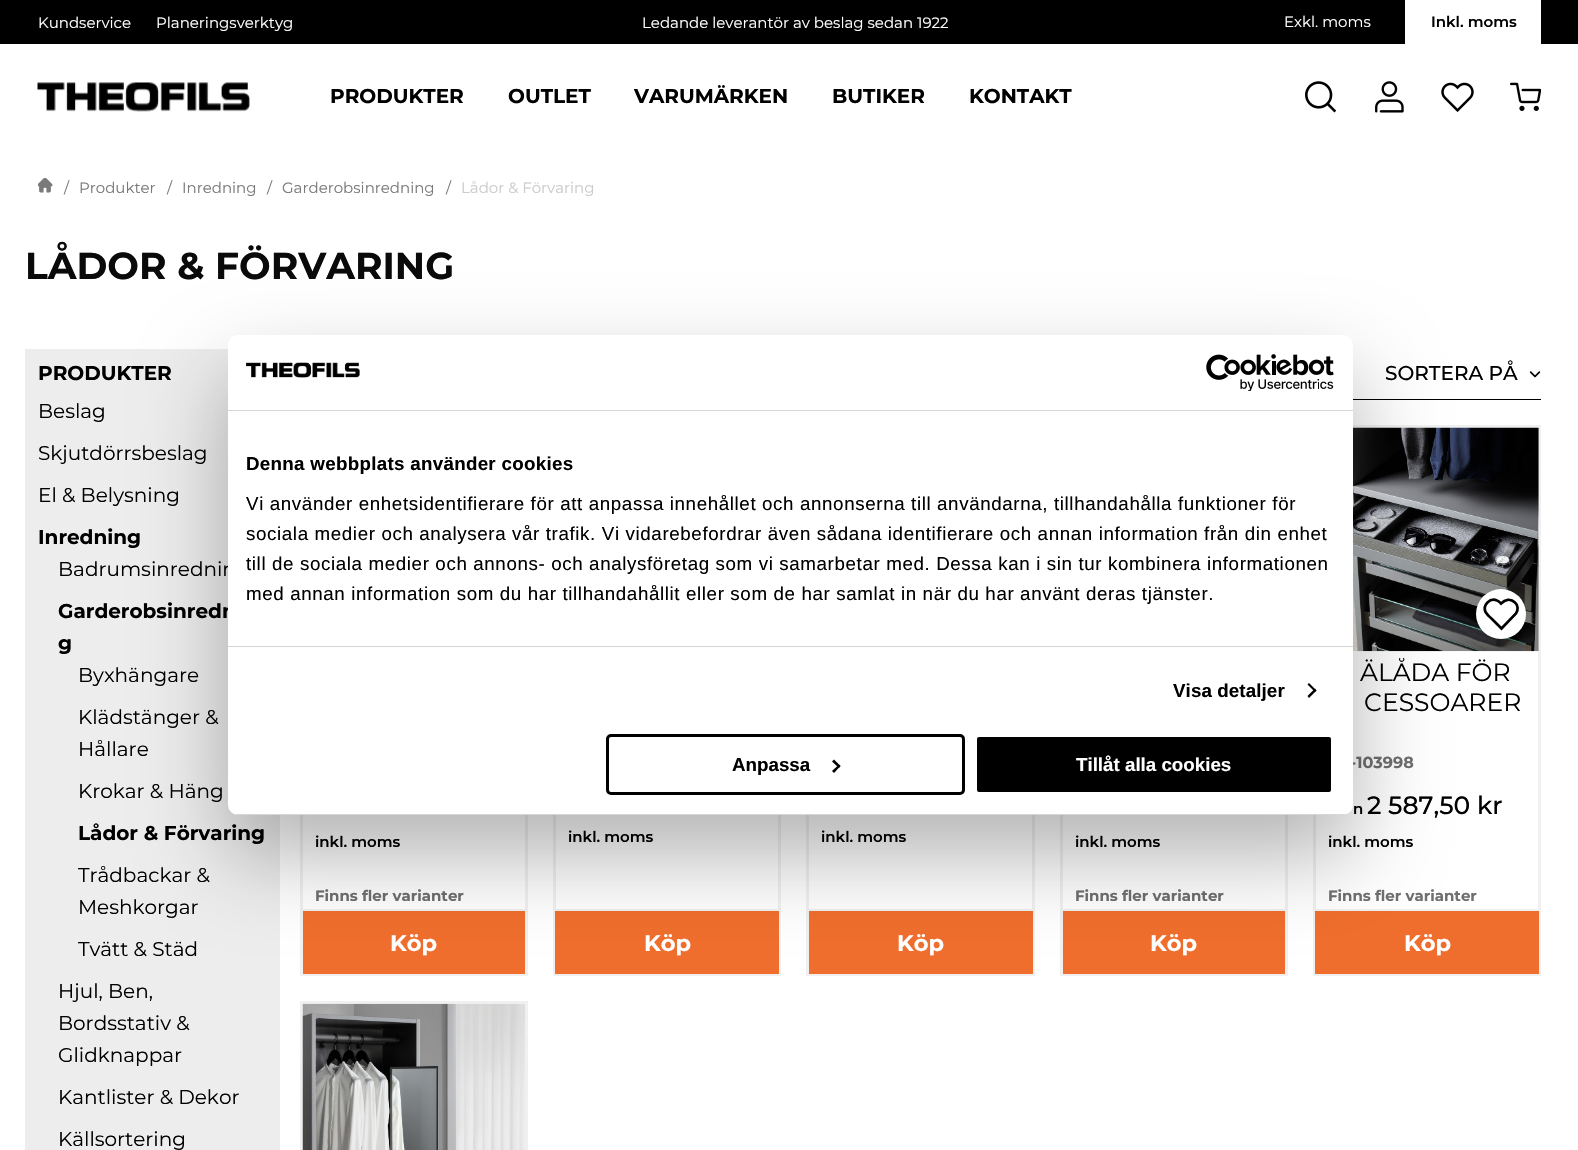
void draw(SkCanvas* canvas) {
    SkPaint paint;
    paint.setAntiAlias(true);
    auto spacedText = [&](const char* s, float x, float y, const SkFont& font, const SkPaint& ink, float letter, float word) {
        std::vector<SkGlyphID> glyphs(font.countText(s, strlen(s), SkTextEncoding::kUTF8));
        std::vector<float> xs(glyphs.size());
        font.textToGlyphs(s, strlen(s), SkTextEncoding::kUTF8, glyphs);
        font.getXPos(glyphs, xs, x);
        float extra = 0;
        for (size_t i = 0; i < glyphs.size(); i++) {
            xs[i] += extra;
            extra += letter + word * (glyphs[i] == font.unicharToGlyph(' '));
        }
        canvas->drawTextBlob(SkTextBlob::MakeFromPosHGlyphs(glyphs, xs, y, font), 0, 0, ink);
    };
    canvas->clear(0xFFFFFFFF);
    paint.setColor(0xFF000000);
    canvas->drawRect(SkRect::MakeXYWH(0, 0, 1578, 44), paint);
    SkFont font1(fontMgr->matchFamilyStyle("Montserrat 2", SkFontStyle(100, SkFontStyle::kNormal_Width, SkFontStyle::kUpright_Slant)), 15);
    font1.setSubpixel(true);
    paint.setColor(0xFFFFFFFF);
    canvas->drawString("Kundservice", 38, 28, font1, paint);
    canvas->drawString("Planeringsverktyg", 156, 28, font1, paint);
    canvas->drawString("Ledande leverantör av beslag sedan 1922", 642, 28, font1, paint);
    canvas->drawString("Exkl. moms", 1284, 27, font1, paint);
    canvas->drawRect(SkRect::MakeXYWH(1405, 0, 136, 44), paint);
    SkFont font2(fontMgr->matchFamilyStyle("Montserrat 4", SkFontStyle(100, SkFontStyle::kNormal_Width, SkFontStyle::kUpright_Slant)), 15);
    font2.setSubpixel(true);
    paint.setColor(0xFF000000);
    canvas->drawString("Inkl. moms", 1431, 27, font2, paint);
    canvas->drawImageRect(SkImages::DeferredFromEncodedData(SkData::MakeFromFileName("img1.png")), SkRect::MakeXYWH(37, 82, 213, 30), SkSamplingOptions());
    SkFont font3(fontMgr->matchFamilyStyle("Montserrat", SkFontStyle(100, SkFontStyle::kNormal_Width, SkFontStyle::kUpright_Slant)), 20);
    font3.setSubpixel(true);
    canvas->drawString("PRODUKTER", 330, 103, font3, paint);
    canvas->drawString("OUTLET", 508, 103, font3, paint);
    canvas->drawString("VARUMÄRKEN", 634, 103, font3, paint);
    canvas->drawString("BUTIKER", 832, 103, font3, paint);
    canvas->drawString("KONTAKT", 969, 103, font3, paint);
    canvas->drawImageRect(SkImages::DeferredFromEncodedData(SkData::MakeFromFileName("img2.png")), SkRect::MakeXYWH(1305, 81, 31, 32), SkSamplingOptions());
    canvas->drawImageRect(SkImages::DeferredFromEncodedData(SkData::MakeFromFileName("img3.png")), SkRect::MakeXYWH(1375, 81, 29, 32), SkSamplingOptions());
    canvas->drawImageRect(SkImages::DeferredFromEncodedData(SkData::MakeFromFileName("img4.png")), SkRect::MakeXYWH(1441, 82, 33, 30), SkSamplingOptions());
    canvas->drawImageRect(SkImages::DeferredFromEncodedData(SkData::MakeFromFileName("img5.png")), SkRect::MakeXYWH(1510, 82, 31, 29), SkSamplingOptions());
    canvas->drawImageRect(SkImages::DeferredFromEncodedData(SkData::MakeFromFileName("img6.png")), SkRect::MakeXYWH(38, 178, 15, 15), SkSamplingOptions());
    paint.setColor(0xFF7A7A7A);
    canvas->drawString("/", 64, 193, font1, paint);
    canvas->drawString("Produkter", 79, 193, font1, paint);
    canvas->drawString("/", 167, 193, font1, paint);
    canvas->drawString("Inredning", 182, 193, font1, paint);
    canvas->drawString("/", 267, 193, font1, paint);
    canvas->drawString("Garderobsinredning", 282, 193, font1, paint);
    canvas->drawString("/", 446, 193, font1, paint);
    paint.setColor(0xFFCCCCCC);
    canvas->drawString("Lådor & Förvaring", 461, 193, font1, paint);
    SkFont font4(fontMgr->matchFamilyStyle("Montserrat", SkFontStyle(100, SkFontStyle::kNormal_Width, SkFontStyle::kUpright_Slant)), 37.5f);
    font4.setSubpixel(true);
    paint.setColor(0xFF0A0A0A);
    canvas->drawString("LÅDOR & FÖRVARING", 25, 279, font4, paint);
    paint.setColor(0xFFEDEDED);
    canvas->drawRect(SkRect::MakeXYWH(25, 349, 255, 801), paint);
    paint.setColor(0xFF000000);
    canvas->drawString("PRODUKTER", 38, 380, font3, paint);
    SkFont font5(fontMgr->matchFamilyStyle("Montserrat 2", SkFontStyle(100, SkFontStyle::kNormal_Width, SkFontStyle::kUpright_Slant)), 20);
    font5.setSubpixel(true);
    canvas->drawString("Beslag", 38, 418, font5, paint);
    canvas->drawString("Skjutdörrsbeslag", 38, 460, font5, paint);
    canvas->drawString("El & Belysning", 38, 502, font5, paint);
    canvas->drawString("Inredning", 38, 544, font3, paint);
    canvas->drawString("Badrumsinrednin", 58, 576, font5, paint);
    canvas->drawString("Garderobsinredn", 58, 618, font3, paint);
    canvas->drawString("g", 58, 650, font3, paint);
    canvas->drawString("Byxhängare", 78, 682, font5, paint);
    canvas->drawString("Klädstänger &", 78, 724, font5, paint);
    canvas->drawString("Hållare", 78, 756, font5, paint);
    canvas->drawString("Krokar & Häng", 78, 798, font5, paint);
    canvas->drawString("Lådor & Förvaring", 78, 840, font3, paint);
    canvas->drawString("Trådbackar &", 78, 882, font5, paint);
    canvas->drawString("Meshkorgar", 78, 914, font5, paint);
    canvas->drawString("Tvätt & Städ", 78, 956, font5, paint);
    canvas->drawString("Hjul, Ben,", 58, 998, font5, paint);
    canvas->drawString("Bordsstativ &", 58, 1030, font5, paint);
    canvas->drawString("Glidknappar", 58, 1062, font5, paint);
    canvas->drawString("Kantlister & Dekor", 58, 1104, font5, paint);
    canvas->drawString("Källsortering", 58, 1146, font5, paint);
    canvas->drawRect(SkRect::MakeXYWH(1353, 399, 188, 1), paint);
    SkFont font6(fontMgr->matchFamilyStyle("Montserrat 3", SkFontStyle(100, SkFontStyle::kNormal_Width, SkFontStyle::kUpright_Slant)), 20);
    font6.setSubpixel(true);
    canvas->drawString("SORTERA PÅ", 1385, 380, font6, paint);
    canvas->drawImageRect(SkImages::DeferredFromEncodedData(SkData::MakeFromFileName("img7.png")), SkRect::MakeXYWH(1529, 371, 12, 7), SkSamplingOptions());
    paint.setStyle(SkPaint::kStroke_Style);
    paint.setStrokeWidth(3);
    paint.setColor(0xFFF0F0F0);
    canvas->drawRect(SkRect::MakeXYWH(301.5f, 426.5f, 225, 548), paint);
    paint.setStyle(SkPaint::kFill_Style);
    paint.setColor(0xFF000000);
    canvas->drawString("inkl. moms", 315, 847, font2, paint);
    SkFont font7(fontMgr->matchFamilyStyle("Montserrat", SkFontStyle(100, SkFontStyle::kNormal_Width, SkFontStyle::kUpright_Slant)), 15);
    font7.setSubpixel(true);
    paint.setColor(0xFF6F6F6F);
    canvas->drawString("Finns fler varianter", 315, 901, font7, paint);
    paint.setColor(0xFFF0F0F0);
    canvas->drawRect(SkRect::MakeXYWH(303, 909, 222, 2), paint);
    paint.setColor(0xFFF06E2D);
    canvas->drawRect(SkRect::MakeXYWH(303, 911, 222, 63), paint);
    SkFont font8(fontMgr->matchFamilyStyle("Montserrat", SkFontStyle(100, SkFontStyle::kNormal_Width, SkFontStyle::kUpright_Slant)), 22.5f);
    font8.setSubpixel(true);
    paint.setColor(0xFFFFFFFF);
    canvas->drawString("Köp", 390, 951, font8, paint);
    paint.setStyle(SkPaint::kStroke_Style);
    paint.setColor(0xFFF0F0F0);
    canvas->drawRect(SkRect::MakeXYWH(554.5f, 426.5f, 225, 548), paint);
    paint.setStyle(SkPaint::kFill_Style);
    paint.setColor(0xFF000000);
    canvas->drawString("inkl. moms", 568, 842, font2, paint);
    paint.setColor(0xFFF0F0F0);
    canvas->drawRect(SkRect::MakeXYWH(555, 909, 224, 2), paint);
    paint.setColor(0xFFF06E2D);
    canvas->drawRect(SkRect::MakeXYWH(555, 911, 224, 63), paint);
    paint.setColor(0xFFFFFFFF);
    canvas->drawString("Köp", 644, 951, font8, paint);
    paint.setStyle(SkPaint::kStroke_Style);
    paint.setColor(0xFFF0F0F0);
    canvas->drawRect(SkRect::MakeXYWH(807.5f, 426.5f, 226, 548), paint);
    paint.setStyle(SkPaint::kFill_Style);
    paint.setColor(0xFF000000);
    canvas->drawString("inkl. moms", 821, 842, font2, paint);
    paint.setColor(0xFFF0F0F0);
    canvas->drawRect(SkRect::MakeXYWH(809, 909, 224, 2), paint);
    paint.setColor(0xFFF06E2D);
    canvas->drawRect(SkRect::MakeXYWH(809, 911, 224, 63), paint);
    paint.setColor(0xFFFFFFFF);
    canvas->drawString("Köp", 897, 951, font8, paint);
    paint.setStyle(SkPaint::kStroke_Style);
    paint.setColor(0xFFF0F0F0);
    canvas->drawRect(SkRect::MakeXYWH(1061.5f, 426.5f, 225, 548), paint);
    paint.setStyle(SkPaint::kFill_Style);
    paint.setColor(0xFF000000);
    canvas->drawString("inkl. moms", 1075, 847, font2, paint);
    paint.setColor(0xFF6F6F6F);
    canvas->drawString("Finns fler varianter", 1075, 901, font7, paint);
    paint.setColor(0xFFF0F0F0);
    canvas->drawRect(SkRect::MakeXYWH(1063, 909, 222, 2), paint);
    paint.setColor(0xFFF06E2D);
    canvas->drawRect(SkRect::MakeXYWH(1063, 911, 222, 63), paint);
    paint.setColor(0xFFFFFFFF);
    canvas->drawString("Köp", 1150, 951, font8, paint);
    paint.setStyle(SkPaint::kStroke_Style);
    paint.setColor(0xFFF0F0F0);
    canvas->drawRect(SkRect::MakeXYWH(1314.5f, 426.5f, 225, 548), paint);
    canvas->drawImageRect(SkImages::DeferredFromEncodedData(SkData::MakeFromFileName("img8.png")), SkRect::MakeXYWH(1353, 427, 186, 225), SkSamplingOptions());
    paint.setStyle(SkPaint::kFill_Style);
    paint.setColor(0xFFFFFFFF);
    canvas->drawCircle(1501, 614, 25, paint);
    paint.setStyle(SkPaint::kStroke_Style);
    paint.setStrokeWidth(2.7f);
    paint.setColor(0xFF000000);
    canvas->drawPath(SkPathBuilder().moveTo(1515, 602.5f).cubicTo(1510.5f, 598, 1505, 599.5f, 1501, 603.5f).cubicTo(1500, 602.5f, 1499, 601, 1497, 600.5f).cubicTo(1490, 597.5f, 1482.5f, 605, 1485.5f, 612).cubicTo(1487, 614.5f, 1489.5f, 617, 1492, 619).lineTo(1501.5f, 628.5f).lineTo(1516, 613.5f).cubicTo(1518.5f, 610, 1518, 605, 1515, 602.5f).close().detach(), paint);
    canvas->save();
    canvas->clipRect(SkRect::MakeXYWH(1328, 658, 198, 85));
    SkFont font9(fontMgr->matchFamilyStyle("Montserrat 2", SkFontStyle(100, SkFontStyle::kNormal_Width, SkFontStyle::kUpright_Slant)), 25);
    font9.setSubpixel(true);
    paint.setStyle(SkPaint::kFill_Style);
    canvas->drawString("ÄLÅDA FÖR", 1360, 681, font9, paint);
    canvas->restore();
    canvas->drawString("CESSOARER", 1364, 711, font9, paint);
    SkFont font10(fontMgr->matchFamilyStyle("Montserrat", SkFontStyle(100, SkFontStyle::kNormal_Width, SkFontStyle::kUpright_Slant)), 16);
    font10.setSubpixel(true);
    paint.setColor(0xFF6F6F6F);
    canvas->drawString("-103998", 1350, 768, font10, paint);
    paint.setColor(0xFF000000);
    canvas->drawString("n", 1353, 814, font2, paint);
    SkFont font11(fontMgr->matchFamilyStyle("Montserrat 3", SkFontStyle(100, SkFontStyle::kNormal_Width, SkFontStyle::kUpright_Slant)), 25);
    font11.setSubpixel(true);
    canvas->drawString("2 587,50 kr", 1367, 814, font11, paint);
    canvas->drawString("inkl. moms", 1328, 847, font2, paint);
    paint.setColor(0xFF6F6F6F);
    canvas->drawString("Finns fler varianter", 1328, 901, font7, paint);
    paint.setColor(0xFFF0F0F0);
    canvas->drawRect(SkRect::MakeXYWH(1315, 909, 224, 2), paint);
    paint.setColor(0xFFF06E2D);
    canvas->drawRect(SkRect::MakeXYWH(1315, 911, 224, 63), paint);
    paint.setColor(0xFFFFFFFF);
    canvas->drawString("Köp", 1404, 951, font8, paint);
    paint.setStyle(SkPaint::kStroke_Style);
    paint.setStrokeWidth(3);
    paint.setColor(0xFFF0F0F0);
    canvas->drawRect(SkRect::MakeXYWH(301.5f, 1002.5f, 225, 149), paint);
    canvas->drawImageRect(SkImages::DeferredFromEncodedData(SkData::MakeFromFileName("img9.png")), SkRect::MakeXYWH(302, 1003, 223, 147), SkSamplingOptions());
    paint.setStyle(SkPaint::kFill_Style);
    paint.setColor(0x4D000000);
    paint.setMaskFilter(SkMaskFilter::MakeBlur(kNormal_SkBlurStyle, 42.5f));
    canvas->drawRoundRect(SkRect::MakeXYWH(228, 375, 1125, 480), 10, 10, paint);
    paint.setMaskFilter(nullptr);
    paint.setColor(0xFFFFFFFF);
    canvas->drawRoundRect(SkRect::MakeXYWH(228, 335, 1125, 480), 10, 10, paint);
    paint.setColor(0xFFD6D6D6);
    canvas->drawRect(SkRect::MakeXYWH(228, 410, 1125, 1), paint);
    canvas->drawImageRect(SkImages::DeferredFromEncodedData(SkData::MakeFromFileName("img10.png")), SkRect::MakeXYWH(246, 362, 114, 16), SkSamplingOptions());
    canvas->drawImageRect(SkImages::DeferredFromEncodedData(SkData::MakeFromFileName("img11.png")), SkRect::MakeXYWH(1206, 354, 128, 37), SkSamplingOptions());
    canvas->drawRect(SkRect::MakeXYWH(228, 646, 1125, 1), paint);
    SkFont font12(fontMgr->matchFamilyStyle("Liberation Sans", SkFontStyle::Bold()), 18.75f);
    font12.setSubpixel(true);
    paint.setColor(0xFF000000);
    spacedText("Denna webbplats använder cookies", 246, 470, font12, paint, 0.3f, 0);
    SkFont font13(fontMgr->matchFamilyStyle("Liberation Sans", SkFontStyle::Normal()), 18.75f);
    font13.setSubpixel(true);
    spacedText("Vi använder enhetsidentifierare för att anpassa innehållet och annonserna till användarna, tillhandahålla funktioner för", 246, 510, font13, paint, 0.62f, 0);
    spacedText("sociala medier och analysera vår trafik. Vi vidarebefordrar även sådana identifierare och annan information från din enhet", 246, 540, font13, paint, 0.62f, 0);
    spacedText("till de sociala medier och annons- och analysföretag som vi samarbetar med. Dessa kan i sin tur kombinera informationen", 246, 570, font13, paint, 0.62f, 0);
    spacedText("med annan information som du har tillhandahållit eller som de har samlat in när du har använt deras tjänster.", 246, 600, font13, paint, 0.62f, 0);
    spacedText("Visa detaljer", 1173, 697, font12, paint, 0.1f, 0);
    canvas->drawPath(SkPathBuilder().moveTo(1309, 683).lineTo(1316.5f, 690.5f).lineTo(1315, 692).lineTo(1307.5f, 684.5f).close().detach(), paint);
    canvas->drawPath(SkPathBuilder().moveTo(1315, 688.5f).lineTo(1316.5f, 690.5f).lineTo(1309, 698).lineTo(1307.5f, 696).close().detach(), paint);
    canvas->save();
    canvas->clipPath(SkPathBuilder().moveTo(238, 335).lineTo(1343, 335).cubicTo(1348.5f, 335, 1353, 339.5f, 1353, 345).lineTo(1353, 805).cubicTo(1353, 810.5f, 1348.5f, 815, 1343, 815).lineTo(238, 815).cubicTo(232.5f, 815, 228, 810.5f, 228, 805).lineTo(228, 345).cubicTo(228, 339.5f, 232.5f, 335, 238, 335).close().detach(), true);
    paint.setColor(0xFFD6D6D6);
    canvas->drawRect(SkRect::MakeXYWH(228, 814, 1125, 1), paint);
    canvas->restore();
    paint.setStyle(SkPaint::kStroke_Style);
    paint.setColor(0xFF000000);
    canvas->drawRoundRect(SkRect::MakeXYWH(607.5f, 735.5f, 356, 58), 3.5f, 3.5f, paint);
    paint.setStyle(SkPaint::kFill_Style);
    canvas->drawString("Anpassa", 732, 771, font12, paint);
    canvas->drawPath(SkPathBuilder().moveTo(834, 759.5f).lineTo(840.5f, 766).lineTo(839, 768).lineTo(832, 761.5f).close().detach(), paint);
    canvas->drawPath(SkPathBuilder().moveTo(839, 764.5f).lineTo(840.5f, 766).lineTo(834, 773).lineTo(832, 771).close().detach(), paint);
    canvas->drawRoundRect(SkRect::MakeXYWH(975.5f, 735.5f, 357, 58), 3.5f, 3.5f, paint);
    paint.setStyle(SkPaint::kStroke_Style);
    paint.setColor(0xFFFFFFFF);
    canvas->drawRoundRect(SkRect::MakeXYWH(975.5f, 735.5f, 357, 58), 3.5f, 3.5f, paint);
    paint.setStyle(SkPaint::kFill_Style);
    canvas->drawString("Tillåt alla cookies", 1076, 771, font12, paint);
}
